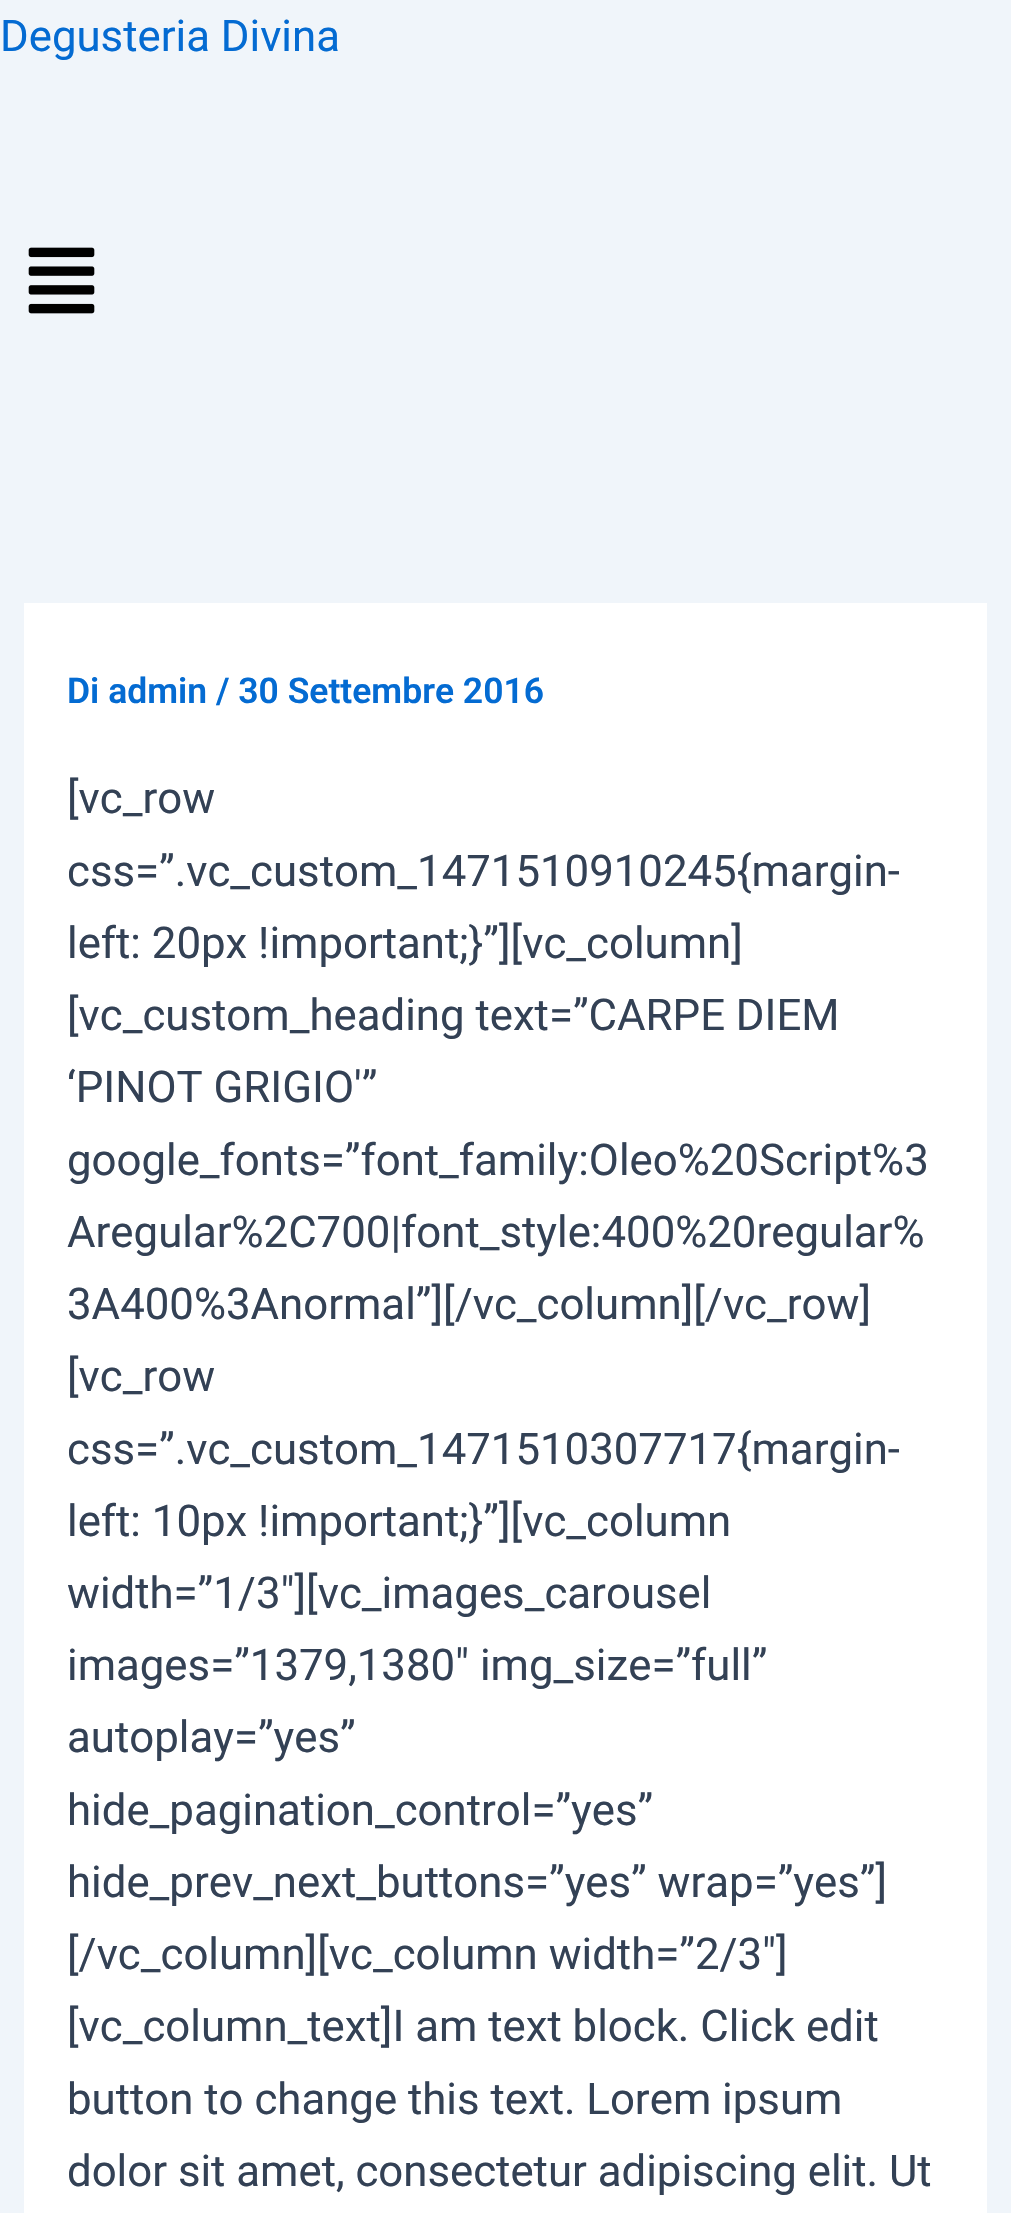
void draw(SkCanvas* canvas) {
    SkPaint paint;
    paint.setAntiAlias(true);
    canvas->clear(0xFFF0F5FA);
    SkFont font1(fontMgr->matchFamilyStyle("Roboto", SkFontStyle::Normal()), 43.75f);
    font1.setSubpixel(true);
    paint.setColor(0xFF046BD2);
    canvas->drawString("Degusteria Divina", 0, 51, font1, paint);
    canvas->drawImageRect(SkImages::DeferredFromEncodedData(SkData::MakeFromFileName("img1.png")), SkRect::MakeXYWH(28, 247, 67, 67), SkSamplingOptions());
    paint.setColor(0xFFFFFFFF);
    canvas->drawRect(SkRect::MakeXYWH(24, 603, 963, 1610), paint);
    SkFont font2(fontMgr->matchFamilyStyle("Roboto", SkFontStyle(600, SkFontStyle::kNormal_Width, SkFontStyle::kUpright_Slant)), 35.5f);
    font2.setSubpixel(true);
    paint.setColor(0xFF046BD2);
    canvas->drawString("Di admin / 30 Settembre 2016", 67, 703, font2, paint);
    paint.setColor(0xFF334155);
    canvas->drawString("[vc_row", 67, 813, font1, paint);
    canvas->drawString("css=”.vc_custom_1471510910245{margin-", 67, 886, font1, paint);
    canvas->drawString("left: 20px !important;}”][vc_column]", 67, 958, font1, paint);
    canvas->drawString("[vc_custom_heading text=”CARPE DIEM", 67, 1030, font1, paint);
    canvas->drawString("‘PINOT GRIGIO'”", 67, 1102, font1, paint);
    canvas->drawString("google_fonts=”font_family:Oleo%20Script%3", 67, 1175, font1, paint);
    canvas->drawString("Aregular%2C700|font_style:400%20regular%", 67, 1247, font1, paint);
    canvas->drawString("3A400%3Anormal”][/vc_column][/vc_row]", 67, 1319, font1, paint);
    canvas->drawString("[vc_row", 67, 1391, font1, paint);
    canvas->drawString("css=”.vc_custom_1471510307717{margin-", 67, 1464, font1, paint);
    canvas->drawString("left: 10px !important;}”][vc_column", 67, 1536, font1, paint);
    canvas->drawString("width=”1/3″][vc_images_carousel", 67, 1608, font1, paint);
    canvas->drawString("images=”1379,1380″ img_size=”full”", 67, 1680, font1, paint);
    canvas->drawString("autoplay=”yes”", 67, 1752, font1, paint);
    canvas->drawString("hide_pagination_control=”yes”", 67, 1825, font1, paint);
    canvas->drawString("hide_prev_next_buttons=”yes” wrap=”yes”]", 67, 1897, font1, paint);
    canvas->drawString("[/vc_column][vc_column width=”2/3″]", 67, 1969, font1, paint);
    canvas->drawString("[vc_column_text]I am text block. Click edit", 67, 2041, font1, paint);
    canvas->drawString("button to change this text. Lorem ipsum", 67, 2114, font1, paint);
    canvas->drawString("dolor sit amet, consectetur adipiscing elit. Ut", 67, 2186, font1, paint);
}
